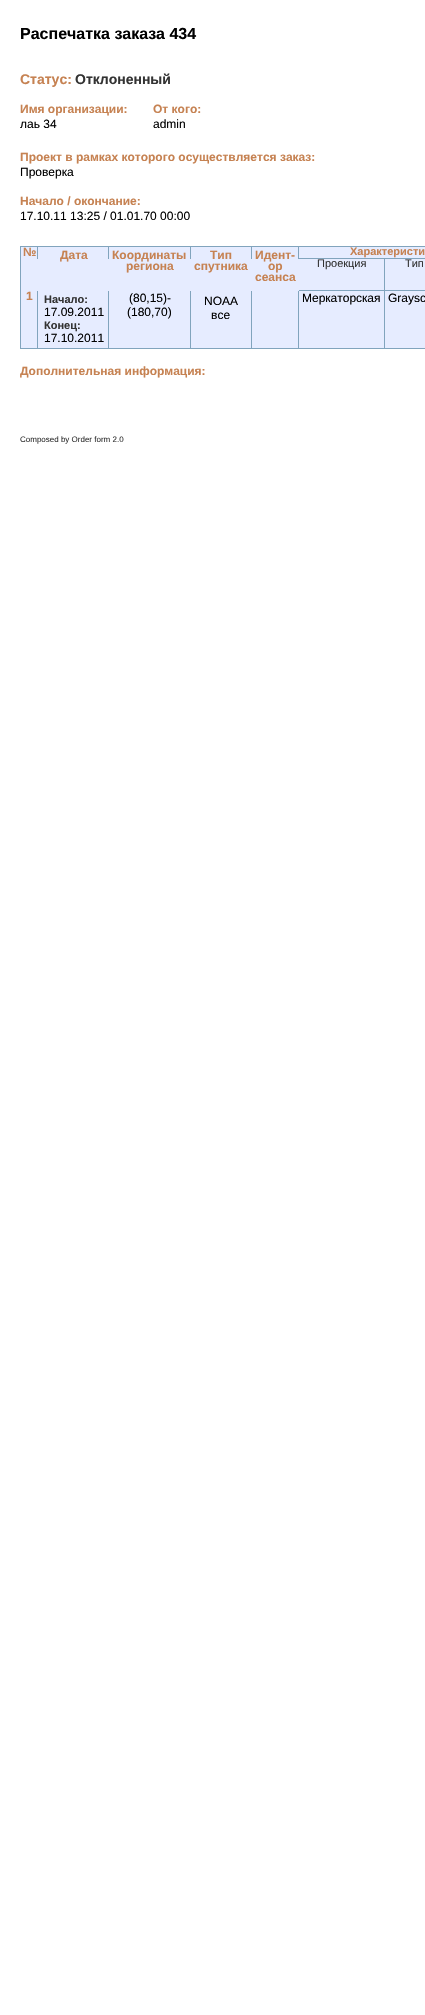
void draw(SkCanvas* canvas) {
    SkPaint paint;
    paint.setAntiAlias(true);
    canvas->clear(0xFFFFFFFF);
    SkFont font1(fontMgr->matchFamilyStyle("Liberation Sans", SkFontStyle::Bold()), 16);
    font1.setSubpixel(true);
    paint.setColor(0xFF000000);
    canvas->drawString("Распечатка заказа 434", 20, 39, font1, paint);
    SkFont font2(fontMgr->matchFamilyStyle("Liberation Sans", SkFontStyle::Bold()), 14);
    font2.setSubpixel(true);
    paint.setColor(0xFFC68252);
    canvas->drawString("Статус:", 20, 84, font2, paint);
    paint.setColor(0xFF333333);
    canvas->drawString("Отклоненный", 75, 84, font2, paint);
    SkFont font3(fontMgr->matchFamilyStyle("Liberation Sans", SkFontStyle::Bold()), 12);
    font3.setSubpixel(true);
    paint.setColor(0xFFC68252);
    canvas->drawString("Имя организации:", 20, 113, font3, paint);
    SkFont font4(fontMgr->matchFamilyStyle("Liberation Sans", SkFontStyle::Normal()), 12);
    font4.setSubpixel(true);
    paint.setColor(0xFF000000);
    canvas->drawString("лаь 34", 20, 128, font4, paint);
    paint.setColor(0xFFC68252);
    canvas->drawString("От кого:", 153, 113, font3, paint);
    paint.setColor(0xFF000000);
    canvas->drawString("admin", 153, 128, font4, paint);
    paint.setColor(0xFFC68252);
    canvas->drawString("Проект в рамках которого осуществляется заказ:", 20, 161, font3, paint);
    paint.setColor(0xFF000000);
    canvas->drawString("Проверка", 20, 176, font4, paint);
    paint.setColor(0xFFC68252);
    canvas->drawString("Начало / окончание:", 20, 205, font3, paint);
    paint.setColor(0xFF000000);
    canvas->drawString("17.10.11 13:25 / 01.01.70 00:00", 20, 220, font4, paint);
    paint.setColor(0xFF81A4BD);
    canvas->drawRect(SkRect::MakeXYWH(20, 246, 405, 1), paint);
    canvas->drawRect(SkRect::MakeXYWH(20, 246, 1, 103), paint);
    paint.setColor(0xFFE6ECFF);
    canvas->drawRect(SkRect::MakeXYWH(21, 247, 404, 101), paint);
    paint.setColor(0xFF81A4BD);
    canvas->drawRect(SkRect::MakeXYWH(37, 247, 1, 12), paint);
    paint.setColor(0xFFC68252);
    canvas->drawString("№", 23, 256, font3, paint);
    paint.setColor(0xFF81A4BD);
    canvas->drawRect(SkRect::MakeXYWH(108, 247, 1, 12), paint);
    paint.setColor(0xFFC68252);
    canvas->drawString("Дата", 60, 259, font3, paint);
    paint.setColor(0xFF81A4BD);
    canvas->drawRect(SkRect::MakeXYWH(190, 247, 1, 12), paint);
    paint.setColor(0xFFC68252);
    canvas->drawString("Координаты", 112, 259, font3, paint);
    canvas->drawString("региона", 126, 270, font3, paint);
    paint.setColor(0xFF81A4BD);
    canvas->drawRect(SkRect::MakeXYWH(251, 247, 1, 12), paint);
    paint.setColor(0xFFC68252);
    canvas->drawString("Тип", 210, 259, font3, paint);
    canvas->drawString("спутника", 194, 270, font3, paint);
    paint.setColor(0xFF81A4BD);
    canvas->drawRect(SkRect::MakeXYWH(298, 247, 1, 12), paint);
    paint.setColor(0xFFC68252);
    canvas->drawString("Идент-", 255, 259, font3, paint);
    canvas->drawString("ор", 268, 270, font3, paint);
    canvas->drawString("сеанса", 255, 281, font3, paint);
    paint.setColor(0xFF81A4BD);
    canvas->drawRect(SkRect::MakeXYWH(299, 258, 126, 1), paint);
    SkFont font5(fontMgr->matchFamilyStyle("Liberation Sans", SkFontStyle::Bold()), 11);
    font5.setSubpixel(true);
    paint.setColor(0xFFC68252);
    canvas->drawString("Характеристи", 350, 255, font5, paint);
    paint.setColor(0xFF81A4BD);
    canvas->drawRect(SkRect::MakeXYWH(384, 259, 1, 90), paint);
    canvas->drawRect(SkRect::MakeXYWH(299, 290, 126, 1), paint);
    SkFont font6(fontMgr->matchFamilyStyle("Liberation Sans", SkFontStyle::Normal()), 11);
    font6.setSubpixel(true);
    paint.setColor(0xFF333333);
    canvas->drawString("Проекция", 317, 267, font6, paint);
    canvas->drawString("Тип", 405, 267, font6, paint);
    paint.setColor(0xFF81A4BD);
    canvas->drawRect(SkRect::MakeXYWH(37, 291, 1, 58), paint);
    canvas->drawRect(SkRect::MakeXYWH(21, 348, 17, 1), paint);
    paint.setColor(0xFFC68252);
    canvas->drawString("1", 26, 300, font3, paint);
    paint.setColor(0xFF81A4BD);
    canvas->drawRect(SkRect::MakeXYWH(190, 291, 1, 58), paint);
    canvas->drawRect(SkRect::MakeXYWH(109, 348, 82, 1), paint);
    paint.setColor(0xFF000000);
    canvas->drawString("(80,15)-", 129, 302, font4, paint);
    canvas->drawString("(180,70)", 127, 316, font4, paint);
    paint.setColor(0xFF81A4BD);
    canvas->drawRect(SkRect::MakeXYWH(298, 291, 1, 58), paint);
    canvas->drawRect(SkRect::MakeXYWH(252, 348, 173, 1), paint);
    canvas->drawRect(SkRect::MakeXYWH(108, 291, 1, 58), paint);
    canvas->drawRect(SkRect::MakeXYWH(38, 348, 71, 1), paint);
    paint.setColor(0xFF333333);
    canvas->drawString("Начало:", 44, 303, font5, paint);
    paint.setColor(0xFF000000);
    canvas->drawString("17.09.2011", 44, 316, font4, paint);
    paint.setColor(0xFF333333);
    canvas->drawString("Конец:", 44, 329, font5, paint);
    paint.setColor(0xFF000000);
    canvas->drawString("17.10.2011", 44, 342, font4, paint);
    paint.setColor(0xFF81A4BD);
    canvas->drawRect(SkRect::MakeXYWH(251, 291, 1, 58), paint);
    canvas->drawRect(SkRect::MakeXYWH(191, 348, 61, 1), paint);
    paint.setColor(0xFF000000);
    canvas->drawString("NOAA", 204, 305, font4, paint);
    canvas->drawString("все", 211, 319, font4, paint);
    canvas->drawString("Меркаторская", 302, 302, font4, paint);
    canvas->drawString("Graysc", 388, 302, font4, paint);
    paint.setColor(0xFFC68252);
    canvas->drawString("Дополнительная информация:", 20, 375, font3, paint);
    SkFont font7(fontMgr->matchFamilyStyle("Liberation Sans", SkFontStyle::Normal()), 8);
    font7.setSubpixel(true);
    paint.setColor(0xFF333333);
    canvas->drawString("Composed by Order form 2.0", 20, 442, font7, paint);
}
